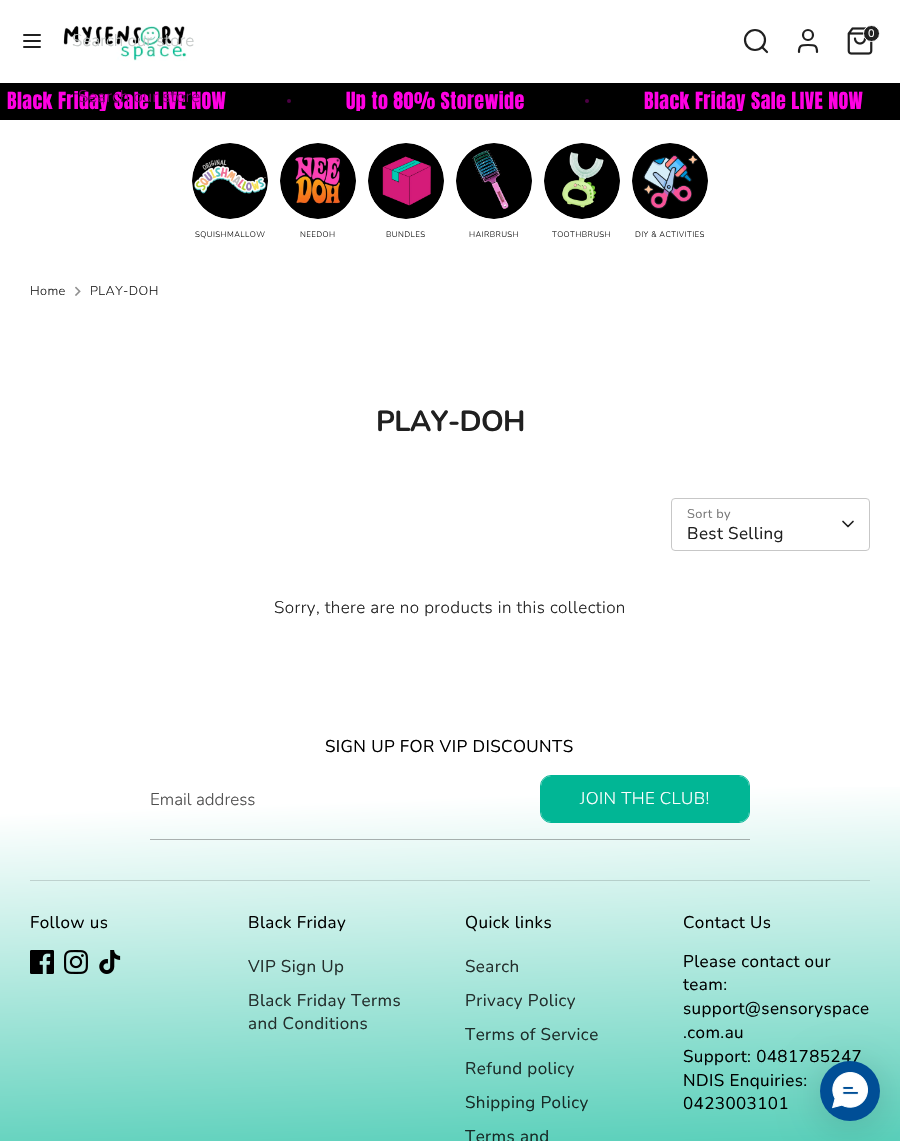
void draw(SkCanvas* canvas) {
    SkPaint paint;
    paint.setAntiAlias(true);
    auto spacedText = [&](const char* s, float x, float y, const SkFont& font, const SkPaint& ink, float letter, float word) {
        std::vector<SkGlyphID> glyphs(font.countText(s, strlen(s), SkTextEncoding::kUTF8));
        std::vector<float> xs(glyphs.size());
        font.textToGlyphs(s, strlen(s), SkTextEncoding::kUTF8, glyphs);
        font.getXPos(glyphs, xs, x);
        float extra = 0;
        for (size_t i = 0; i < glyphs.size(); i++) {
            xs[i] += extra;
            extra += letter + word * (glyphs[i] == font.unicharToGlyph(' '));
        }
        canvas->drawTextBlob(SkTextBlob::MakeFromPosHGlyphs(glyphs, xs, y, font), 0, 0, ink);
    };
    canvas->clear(0xFFFFFFFF);
    canvas->drawImageRect(SkImages::DeferredFromEncodedData(SkData::MakeFromFileName("img1.png")), SkRect::MakeXYWH(63, 25, 124, 36), SkSamplingOptions());
    paint.setStyle(SkPaint::kStroke_Style);
    paint.setStrokeWidth(2);
    paint.setStrokeCap(SkPaint::kRound_Cap);
    paint.setStrokeJoin(SkPaint::kRound_Join);
    paint.setColor(0xFF202020);
    canvas->drawPath(SkPathBuilder().moveTo(24, 41).lineTo(40, 41).moveTo(24, 35).lineTo(40, 35).moveTo(24, 47).lineTo(40, 47).detach(), paint);
    SkFont font1(fontMgr->matchFamilyStyle("Nunito", SkFontStyle(300, SkFontStyle::kNormal_Width, SkFontStyle::kUpright_Slant)), 17);
    font1.setSubpixel(true);
    paint.setStyle(SkPaint::kFill_Style);
    paint.setColor(0xFFC5C9C8);
    canvas->drawString("Search our store", 72, 46, font1, paint);
    paint.setStyle(SkPaint::kStroke_Style);
    paint.setStrokeWidth(2.2f);
    paint.setStrokeCap(SkPaint::kButt_Cap);
    paint.setStrokeJoin(SkPaint::kMiter_Join);
    paint.setColor(0xFF202020);
    canvas->drawCircle(755, 40, 10, paint);
    paint.setStrokeCap(SkPaint::kRound_Cap);
    paint.setStrokeJoin(SkPaint::kRound_Join);
    canvas->drawPath(SkPathBuilder().moveTo(767, 52).lineTo(762, 47).detach(), paint);
    canvas->drawPath(SkPathBuilder().moveTo(817, 52).cubicTo(817, 45, 814.5f, 45, 808, 45).cubicTo(801.5f, 45, 799, 45, 799, 52).detach(), paint);
    paint.setStrokeCap(SkPaint::kButt_Cap);
    paint.setStrokeJoin(SkPaint::kMiter_Join);
    canvas->drawCircle(808, 35, 5, paint);
    canvas->drawImageRect(SkImages::DeferredFromEncodedData(SkData::MakeFromFileName("img2.png")), SkRect::MakeXYWH(847, 27, 26, 28), SkSamplingOptions());
    paint.setStyle(SkPaint::kFill_Style);
    canvas->drawCircle(871.5f, 33.5f, 8, paint);
    paint.setStyle(SkPaint::kStroke_Style);
    paint.setStrokeWidth(1);
    paint.setColor(0xFFFFFFFF);
    canvas->drawCircle(871.5f, 33.5f, 8, paint);
    SkFont font2(fontMgr->matchFamilyStyle("Nunito", SkFontStyle::Normal()), 11);
    font2.setSubpixel(true);
    paint.setStyle(SkPaint::kFill_Style);
    canvas->drawString("0", 868, 37, font2, paint);
    paint.setColor(0xFF000000);
    canvas->drawRect(SkRect::MakeXYWH(0, 83, 900, 37), paint);
    canvas->save();
    canvas->clipRect(SkRect::MakeXYWH(7, 91, 886, 20));
    SkFont font3(fontMgr->matchFamilyStyle("Anton", SkFontStyle::Normal()), 20);
    font3.setSubpixel(true);
    paint.setColor(0xFFFF00E2);
    spacedText("Black Friday Sale LIVE NOW", 7, 109, font3, paint, 0.4f, 0);
    canvas->restore();
    paint.setColor(0xFF830074);
    canvas->drawString("Search our store", 78, 102, font1, paint);
    paint.setColor(0xFF4D0044);
    canvas->drawCircle(289, 101, 2, paint);
    canvas->save();
    canvas->clipRect(SkRect::MakeXYWH(7, 91, 886, 20));
    paint.setColor(0xFFFF00E2);
    spacedText("Up to 80% Storewide", 346, 109, font3, paint, 0.4f, 0);
    canvas->restore();
    paint.setColor(0xFF4D0044);
    canvas->drawCircle(587, 101, 2, paint);
    canvas->save();
    canvas->clipRect(SkRect::MakeXYWH(7, 91, 886, 20));
    paint.setColor(0xFFFF00E2);
    spacedText("Black Friday Sale LIVE NOW", 644, 109, font3, paint, 0.4f, 0);
    canvas->restore();
    canvas->drawImageRect(SkImages::DeferredFromEncodedData(SkData::MakeFromFileName("img3.png")), SkRect::MakeXYWH(192, 143, 76, 76), SkSamplingOptions());
    SkFont font4(fontMgr->matchFamilyStyle("Nunito", SkFontStyle(300, SkFontStyle::kNormal_Width, SkFontStyle::kUpright_Slant)), 8);
    font4.setSubpixel(true);
    paint.setColor(0xFF121212);
    spacedText("SQUISHMALLOW", 195, 237, font4, paint, 0.4f, 0);
    canvas->drawImageRect(SkImages::DeferredFromEncodedData(SkData::MakeFromFileName("img4.png")), SkRect::MakeXYWH(280, 143, 76, 76), SkSamplingOptions());
    spacedText("NEEDOH", 300, 237, font4, paint, 0.4f, 0);
    canvas->drawImageRect(SkImages::DeferredFromEncodedData(SkData::MakeFromFileName("img5.png")), SkRect::MakeXYWH(368, 143, 76, 76), SkSamplingOptions());
    spacedText("BUNDLES", 386, 237, font4, paint, 0.4f, 0);
    canvas->drawImageRect(SkImages::DeferredFromEncodedData(SkData::MakeFromFileName("img6.png")), SkRect::MakeXYWH(456, 143, 76, 76), SkSamplingOptions());
    spacedText("HAIRBRUSH", 469, 237, font4, paint, 0.4f, 0);
    canvas->drawImageRect(SkImages::DeferredFromEncodedData(SkData::MakeFromFileName("img7.png")), SkRect::MakeXYWH(544, 143, 76, 76), SkSamplingOptions());
    spacedText("TOOTHBRUSH", 552, 237, font4, paint, 0.4f, 0);
    canvas->drawImageRect(SkImages::DeferredFromEncodedData(SkData::MakeFromFileName("img8.png")), SkRect::MakeXYWH(632, 143, 76, 76), SkSamplingOptions());
    spacedText("DIY & ACTIVITIES", 635, 237, font4, paint, 0.4f, 0);
    SkFont font5(fontMgr->matchFamilyStyle("Nunito", SkFontStyle(300, SkFontStyle::kNormal_Width, SkFontStyle::kUpright_Slant)), 12.75f);
    font5.setSubpixel(true);
    paint.setColor(0xFF202020);
    spacedText("Home", 30, 295, font5, paint, 0.4f, 0);
    canvas->drawImageRect(SkImages::DeferredFromEncodedData(SkData::MakeFromFileName("img9.png")), SkRect::MakeXYWH(75, 286, 6, 10), SkSamplingOptions());
    spacedText("PLAY-DOH", 90, 295, font5, paint, 0.4f, 0);
    SkFont font6(fontMgr->matchFamilyStyle("Nunito", SkFontStyle::Bold()), 29);
    font6.setSubpixel(true);
    spacedText("PLAY-DOH", 376, 431, font6, paint, -0.75f, 0);
    paint.setStyle(SkPaint::kStroke_Style);
    paint.setColor(0xFFC7C7C7);
    canvas->drawRoundRect(SkRect::MakeXYWH(671.5f, 498.5f, 198, 52), 3.5f, 3.5f, paint);
    SkFont font7(fontMgr->matchFamilyStyle("Nunito", SkFontStyle::Normal()), 12.75f);
    font7.setSubpixel(true);
    paint.setStyle(SkPaint::kFill_Style);
    paint.setColor(0xFF797979);
    spacedText("Sort by", 687, 518, font7, paint, 0.4f, 0);
    paint.setStyle(SkPaint::kStroke_Style);
    paint.setStrokeWidth(1.7f);
    paint.setStrokeCap(SkPaint::kRound_Cap);
    paint.setStrokeJoin(SkPaint::kRound_Join);
    paint.setColor(0xFF202020);
    canvas->drawPath(SkPathBuilder().moveTo(843, 521.5f).lineTo(848, 526.5f).lineTo(853, 521.5f).detach(), paint);
    SkFont font8(fontMgr->matchFamilyStyle("Nunito", SkFontStyle::Normal()), 17);
    font8.setSubpixel(true);
    paint.setStyle(SkPaint::kFill_Style);
    spacedText("Best Selling", 687, 539, font8, paint, 0.4f, 0);
    spacedText("Sorry, there are no products in this collection", 274, 613, font1, paint, 0.4f, 0);
    {
        const SkColor colors[] = {0xFFFFFFFF, 0xFF01B695};
        const float stops[] = {0.15f, 0.85f};
        const SkPoint ends[] = {{436, 680}, {464, 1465}};
        paint.setShader(SkGradientShader::MakeLinear(ends, colors, stops, 2, SkTileMode::kClamp));
        paint.setAlpha(255);
    }
    canvas->drawRect(SkRect::MakeXYWH(0, 787, 900, 354), paint);
    {
        const SkColor colors[] = {0xFFD9D9D9, 0xFF019B7F};
        const float stops[] = {0.15f, 0.85f};
        const SkPoint ends[] = {{436, 680}, {464, 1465}};
        paint.setShader(SkGradientShader::MakeLinear(ends, colors, stops, 2, SkTileMode::kClamp));
        paint.setAlpha(255);
    }
    canvas->drawRect(SkRect::MakeXYWH(30, 880, 840, 1), paint);
    {
        const SkColor colors[] = {0xFFB3B3B3, 0xFF017F68};
        const float stops[] = {0.15f, 0.85f};
        const SkPoint ends[] = {{436, 680}, {464, 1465}};
        paint.setShader(SkGradientShader::MakeLinear(ends, colors, stops, 2, SkTileMode::kClamp));
        paint.setAlpha(255);
    }
    canvas->drawRect(SkRect::MakeXYWH(150, 839, 600, 1), paint);
    paint.setShader(nullptr);
    paint.setColor(0xFF000000);
    spacedText("SIGN UP FOR VIP DISCOUNTS", 325, 752, font8, paint, 0.4f, 0);
    paint.setColor(0xFF4D4D4D);
    canvas->drawString("Email address", 150, 805, font1, paint);
    paint.setStyle(SkPaint::kStroke_Style);
    paint.setStrokeWidth(1);
    paint.setStrokeCap(SkPaint::kButt_Cap);
    paint.setStrokeJoin(SkPaint::kMiter_Join);
    paint.setColor(0xFF01B695);
    canvas->drawRoundRect(SkRect::MakeXYWH(540.5f, 775.5f, 209, 47), 10.5f, 10.5f, paint);
    paint.setStyle(SkPaint::kFill_Style);
    canvas->drawRoundRect(SkRect::MakeXYWH(541, 776, 208, 46), 10, 10, paint);
    paint.setColor(0xFFFFFFFF);
    spacedText("JOIN THE CLUB!", 580, 804, font1, paint, 0.4f, 0);
    paint.setColor(0xFF000000);
    spacedText("Follow us", 30, 928, font8, paint, 0.4f, 0);
    canvas->drawImageRect(SkImages::DeferredFromEncodedData(SkData::MakeFromFileName("img10.png")), SkRect::MakeXYWH(30, 950, 24, 24), SkSamplingOptions());
    canvas->drawImageRect(SkImages::DeferredFromEncodedData(SkData::MakeFromFileName("img11.png")), SkRect::MakeXYWH(64, 950, 24, 24), SkSamplingOptions());
    canvas->drawImageRect(SkImages::DeferredFromEncodedData(SkData::MakeFromFileName("img12.png")), SkRect::MakeXYWH(99, 950, 22, 24), SkSamplingOptions());
    spacedText("Black Friday", 248, 928, font8, paint, 0.4f, 0);
    paint.setColor(0xFF242F2D);
    spacedText("VIP Sign Up", 248, 972, font8, paint, 0.4f, 0);
    spacedText("Black Friday Terms", 248, 1006, font8, paint, 0.4f, 0);
    spacedText("and Conditions", 248, 1029, font8, paint, 0.4f, 0);
    paint.setColor(0xFF000000);
    spacedText("Quick links", 465, 928, font8, paint, 0.4f, 0);
    paint.setColor(0xFF242F2D);
    spacedText("Search", 465, 972, font8, paint, 0.4f, 0);
    spacedText("Privacy Policy", 465, 1006, font8, paint, 0.4f, 0);
    paint.setColor(0xFF1D2D2A);
    spacedText("Terms of Service", 465, 1040, font8, paint, 0.4f, 0);
    spacedText("Refund policy", 465, 1074, font8, paint, 0.4f, 0);
    paint.setColor(0xFF172B27);
    spacedText("Shipping Policy", 465, 1108, font8, paint, 0.4f, 0);
    spacedText("Terms and", 465, 1142, font8, paint, 0.4f, 0);
    paint.setColor(0xFF000000);
    spacedText("Contact Us", 683, 928, font8, paint, 0.4f, 0);
    spacedText("Please contact our", 683, 967, font8, paint, 0.4f, 0);
    spacedText("team:", 683, 990, font8, paint, 0.4f, 0);
    spacedText("support@sensoryspace", 683, 1014, font8, paint, 0.4f, 0);
    spacedText(".com.au", 683, 1038, font8, paint, 0.4f, 0);
    spacedText("Support: 0481785247", 683, 1062, font8, paint, 0.4f, 0);
    spacedText("NDIS Enquiries:", 683, 1086, font8, paint, 0.4f, 0);
    spacedText("0423003101", 683, 1109, font8, paint, 0.4f, 0);
    paint.setColor(0x29000000);
    paint.setMaskFilter(SkMaskFilter::MakeBlur(kNormal_SkBlurStyle, 20));
    canvas->drawRoundRect(SkRect::MakeXYWH(820, 1066, 60, 60), 30, 30, paint);
    paint.setMaskFilter(nullptr);
    paint.setColor(0xFF004E96);
    canvas->drawCircle(850, 1091, 30, paint);
    canvas->drawImageRect(SkImages::DeferredFromEncodedData(SkData::MakeFromFileName("img13.png")), SkRect::MakeXYWH(832, 1072, 36, 37), SkSamplingOptions());
}
